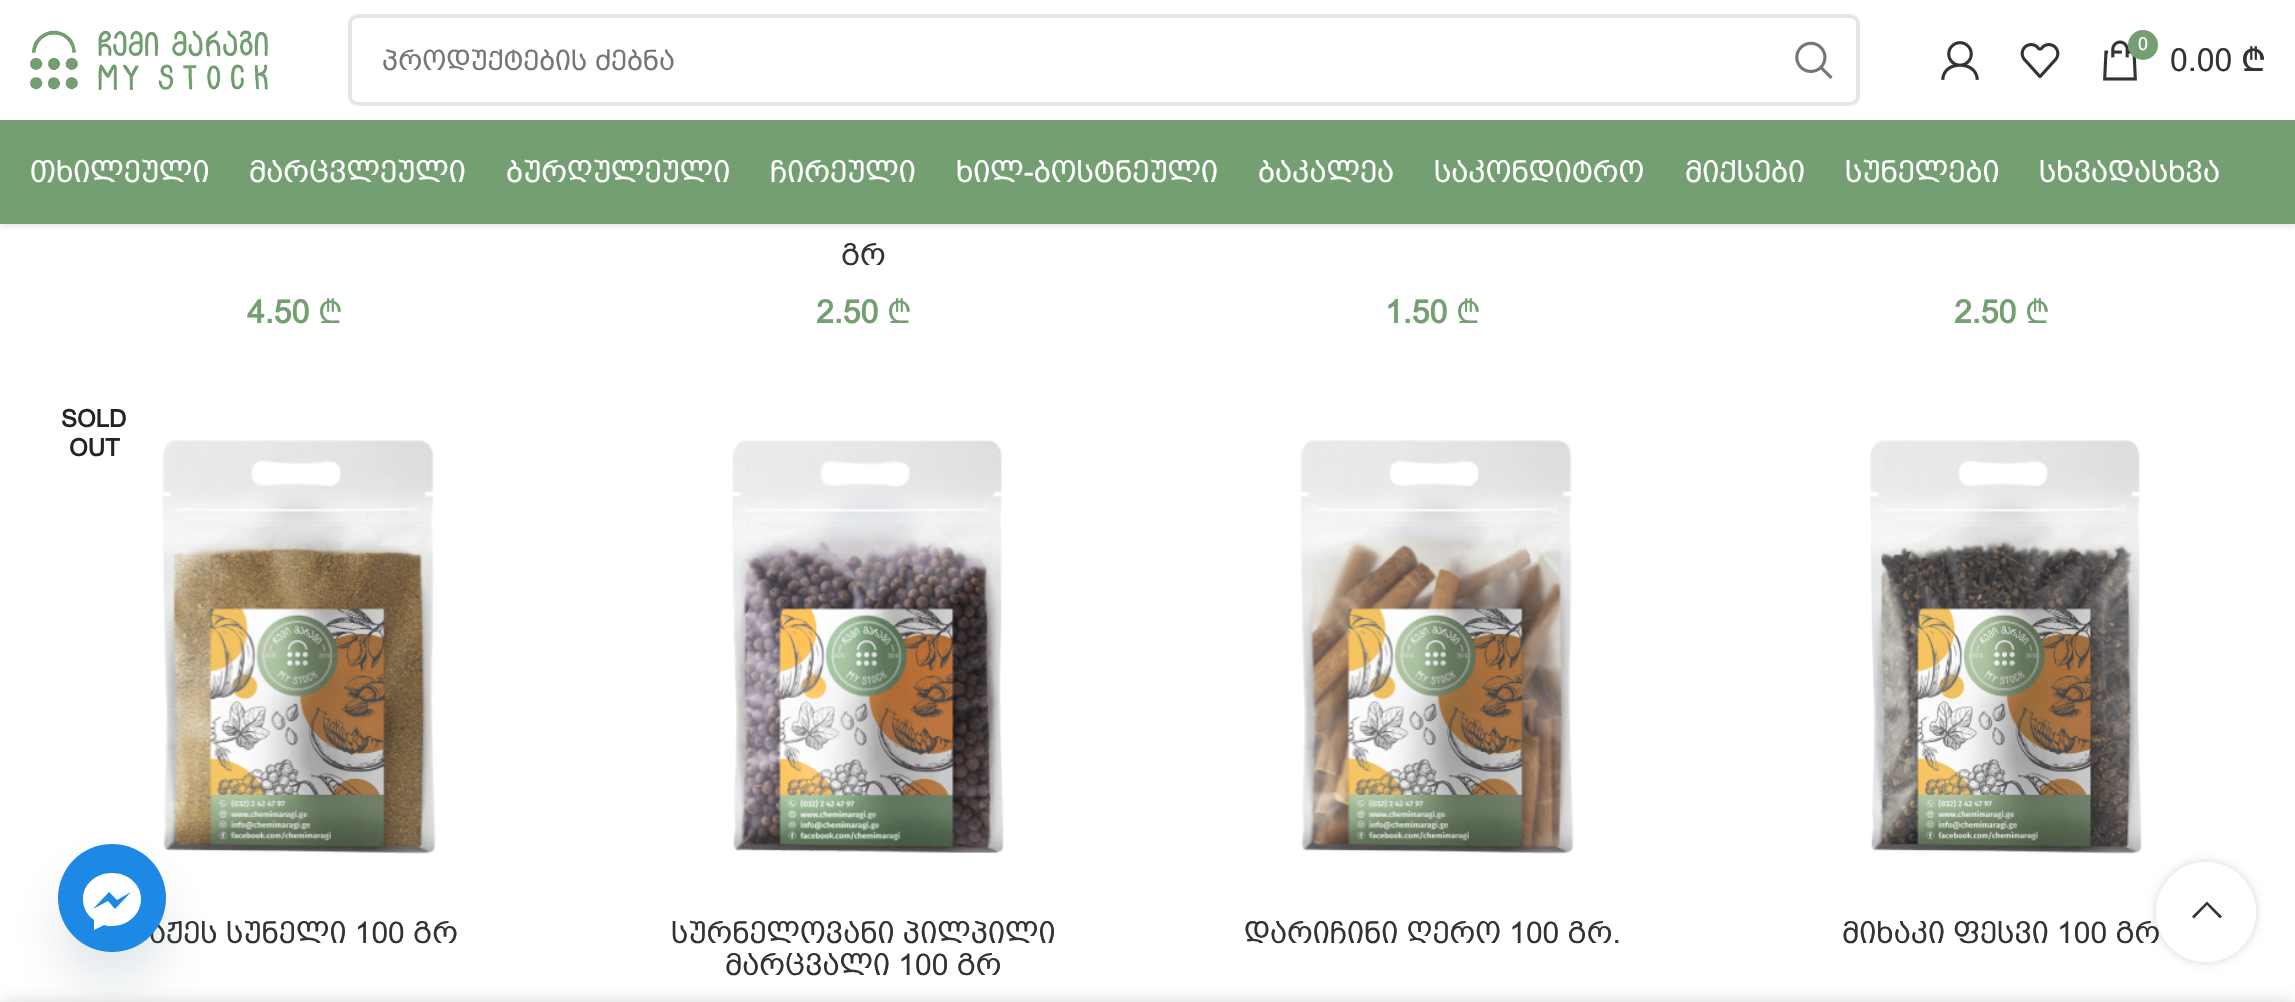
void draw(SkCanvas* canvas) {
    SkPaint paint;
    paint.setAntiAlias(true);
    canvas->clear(0xFFFFFFFF);
    paint.setColor(0x1A000000);
    paint.setMaskFilter(SkMaskFilter::MakeBlur(kNormal_SkBlurStyle, 3));
    canvas->drawRect(SkRect::MakeXYWH(0, 2, 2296, 224), paint);
    paint.setMaskFilter(nullptr);
    paint.setColor(0xFFFFFFFF);
    canvas->drawRect(SkRect::MakeXYWH(0, 0, 2295, 120), paint);
    canvas->drawImageRect(SkImages::DeferredFromEncodedData(SkData::MakeFromFileName("img1.png")), SkRect::MakeXYWH(30, 30, 238, 60), SkSamplingOptions());
    paint.setStyle(SkPaint::kStroke_Style);
    paint.setStrokeWidth(4);
    paint.setColor(0xFFE6E6E6);
    canvas->drawRoundRect(SkRect::MakeXYWH(350, 16, 1508, 88), 8, 8, paint);
    SkFont font1(fontMgr->matchFamilyStyle("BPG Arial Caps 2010", SkFontStyle::Normal()), 28);
    font1.setSubpixel(true);
    paint.setStyle(SkPaint::kFill_Style);
    paint.setColor(0xFF767676);
    canvas->drawString("პროდუქტების ძებნა", 382, 70, font1, paint);
    canvas->drawImageRect(SkImages::DeferredFromEncodedData(SkData::MakeFromFileName("img2.png")), SkRect::MakeXYWH(1795, 41, 38, 38), SkSamplingOptions());
    canvas->drawImageRect(SkImages::DeferredFromEncodedData(SkData::MakeFromFileName("img3.png")), SkRect::MakeXYWH(1941, 41, 38, 39), SkSamplingOptions());
    canvas->drawImageRect(SkImages::DeferredFromEncodedData(SkData::MakeFromFileName("img4.png")), SkRect::MakeXYWH(2020, 43, 40, 35), SkSamplingOptions());
    canvas->drawImageRect(SkImages::DeferredFromEncodedData(SkData::MakeFromFileName("img5.png")), SkRect::MakeXYWH(2103, 40, 34, 41), SkSamplingOptions());
    paint.setColor(0xFF749F72);
    canvas->drawCircle(2143, 45, 15, paint);
    SkFont font2(fontMgr->matchFamilyStyle("BPG Arial Caps 2010", SkFontStyle::Normal()), 18);
    font2.setSubpixel(true);
    paint.setColor(0xFFFFFFFF);
    canvas->drawString("0", 2138, 50, font2, paint);
    SkFont font3(fontMgr->matchFamilyStyle("BPG Arial Caps 2010", SkFontStyle::Normal()), 32);
    font3.setSubpixel(true);
    paint.setColor(0xFF333333);
    canvas->drawString("0.00", 2170, 71, font3, paint);
    SkFont font4(fontMgr->matchFamilyStyle("Noto Sans", SkFontStyle(500, SkFontStyle::kNormal_Width, SkFontStyle::kUpright_Slant)), 32);
    font4.setSubpixel(true);
    canvas->drawString("₾", 2241, 71, font4, paint);
    paint.setColor(0xFF749F72);
    canvas->drawRect(SkRect::MakeXYWH(0, 120, 2295, 104), paint);
    SkFont font5(fontMgr->matchFamilyStyle("BPG Arial Caps 2010", SkFontStyle::Normal()), 30);
    font5.setSubpixel(true);
    paint.setColor(0xFFFFFFFF);
    canvas->drawString("თხილეული", 30, 182, font5, paint);
    canvas->drawString("მარცვლეული", 249, 182, font5, paint);
    canvas->drawString("ბურღულეული", 506, 182, font5, paint);
    canvas->drawString("ჩირეული", 770, 182, font5, paint);
    canvas->drawString("ხილ-ბოსტნეული", 956, 182, font5, paint);
    canvas->drawString("ბაკალეა", 1258, 182, font5, paint);
    canvas->drawString("საკონდიტრო", 1434, 182, font5, paint);
    canvas->drawString("მიქსები", 1685, 182, font5, paint);
    canvas->drawString("სუნელები", 1845, 182, font5, paint);
    canvas->drawString("სხვადასხვა", 2039, 182, font5, paint);
    SkFont font6(fontMgr->matchFamilyStyle("BPG Arial Caps 2010", SkFontStyle::Bold()), 32);
    font6.setSubpixel(true);
    paint.setColor(0xFF749F72);
    canvas->drawString("4.50", 247, 323, font6, paint);
    SkFont font7(fontMgr->matchFamilyStyle("Noto Sans", SkFontStyle::Normal()), 32);
    font7.setSubpixel(true);
    canvas->drawString("₾", 318, 323, font7, paint);
    paint.setColor(0xFF333333);
    canvas->drawString("გრ", 841, 265, font5, paint);
    paint.setColor(0xFF749F72);
    canvas->drawString("2.50", 816, 323, font6, paint);
    canvas->drawString("₾", 887, 323, font7, paint);
    canvas->drawString("1.50", 1385, 323, font6, paint);
    canvas->drawString("₾", 1456, 323, font7, paint);
    canvas->drawString("2.50", 1954, 323, font6, paint);
    canvas->drawString("₾", 2025, 323, font7, paint);
    SkFont font8(fontMgr->matchFamilyStyle("BPG Arial Caps 2010", SkFontStyle::Bold()), 24);
    font8.setSubpixel(true);
    paint.setColor(0xFF242424);
    canvas->drawString("SOLD", 61, 427, font8, paint);
    canvas->drawString("OUT", 69, 456, font8, paint);
    canvas->drawImageRect(SkImages::DeferredFromEncodedData(SkData::MakeFromFileName("img6.png")), SkRect::MakeXYWH(162, 440, 274, 414), SkSamplingOptions());
    paint.setColor(0xFF333333);
    canvas->drawString("აჟეს სუნელი 100 გრ", 149, 943, font5, paint);
    canvas->drawImageRect(SkImages::DeferredFromEncodedData(SkData::MakeFromFileName("img7.png")), SkRect::MakeXYWH(732, 440, 272, 414), SkSamplingOptions());
    canvas->drawString("სურნელოვანი პილპილი", 671, 943, font5, paint);
    canvas->drawString("მარცვალი 100 გრ", 725, 975, font5, paint);
    canvas->drawImageRect(SkImages::DeferredFromEncodedData(SkData::MakeFromFileName("img8.png")), SkRect::MakeXYWH(1300, 440, 274, 414), SkSamplingOptions());
    canvas->drawString("დარიჩინი ღერო 100 გრ.", 1244, 943, font5, paint);
    canvas->drawImageRect(SkImages::DeferredFromEncodedData(SkData::MakeFromFileName("img9.png")), SkRect::MakeXYWH(1870, 440, 272, 414), SkSamplingOptions());
    canvas->drawString("მიხაკი ფესვი 100 გრ", 1842, 943, font5, paint);
    paint.setColor(0x2949687E);
    paint.setMaskFilter(SkMaskFilter::MakeBlur(kNormal_SkBlurStyle, 24));
    canvas->drawRoundRect(SkRect::MakeXYWH(58, 876, 108, 108), 54, 54, paint);
    paint.setMaskFilter(nullptr);
    paint.setColor(0xFF1E88E5);
    canvas->drawCircle(112, 898, 54, paint);
    paint.setColor(0xFFFFFFFF);
    canvas->drawPath(SkPathBuilder(SkPathFillType::kEvenOdd).moveTo(83, 899).cubicTo(83, 884, 96, 873, 112, 873).cubicTo(128, 873, 141, 884, 141, 899).cubicTo(141, 914, 128, 926, 112, 926).cubicTo(109, 926, 106, 926, 104, 925).lineTo(94, 930).lineTo(94, 920).cubicTo(87, 915, 83, 908, 83, 899).close().moveTo(108, 901).lineTo(115, 909).lineTo(131, 892).lineTo(117, 900).lineTo(109, 892).lineTo(93, 909).close().detach(), paint);
    canvas->save();
    canvas->clipPath(SkPathBuilder(SkPathFillType::kEvenOdd).moveTo(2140, 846).lineTo(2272, 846).lineTo(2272, 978).lineTo(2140, 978).close().moveTo(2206, 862).cubicTo(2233.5f, 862, 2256, 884.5f, 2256, 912).cubicTo(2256, 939.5f, 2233.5f, 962, 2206, 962).cubicTo(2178.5f, 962, 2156, 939.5f, 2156, 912).cubicTo(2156, 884.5f, 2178.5f, 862, 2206, 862).close().detach(), true);
    paint.setColor(0x2B000000);
    paint.setMaskFilter(SkMaskFilter::MakeBlur(kNormal_SkBlurStyle, 5));
    canvas->drawRoundRect(SkRect::MakeXYWH(2156, 862, 100, 100), 50, 50, paint);
    paint.setMaskFilter(nullptr);
    canvas->restore();
    paint.setColor(0xE6FFFFFF);
    canvas->drawCircle(2206, 912, 50, paint);
    paint.setColor(0xFF333333);
    canvas->drawPath(SkPathBuilder().moveTo(2220, 918.5f).lineTo(2222, 916.5f).lineTo(2207, 901.5f).lineTo(2192, 916.5f).lineTo(2194, 918.5f).lineTo(2207, 905).close().detach(), paint);
    paint.setColor(0x24000000);
    paint.setMaskFilter(SkMaskFilter::MakeBlur(kNormal_SkBlurStyle, 9));
    canvas->drawRect(SkRect::MakeXYWH(0, 1002, 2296, 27), paint);
    paint.setMaskFilter(nullptr);
}
